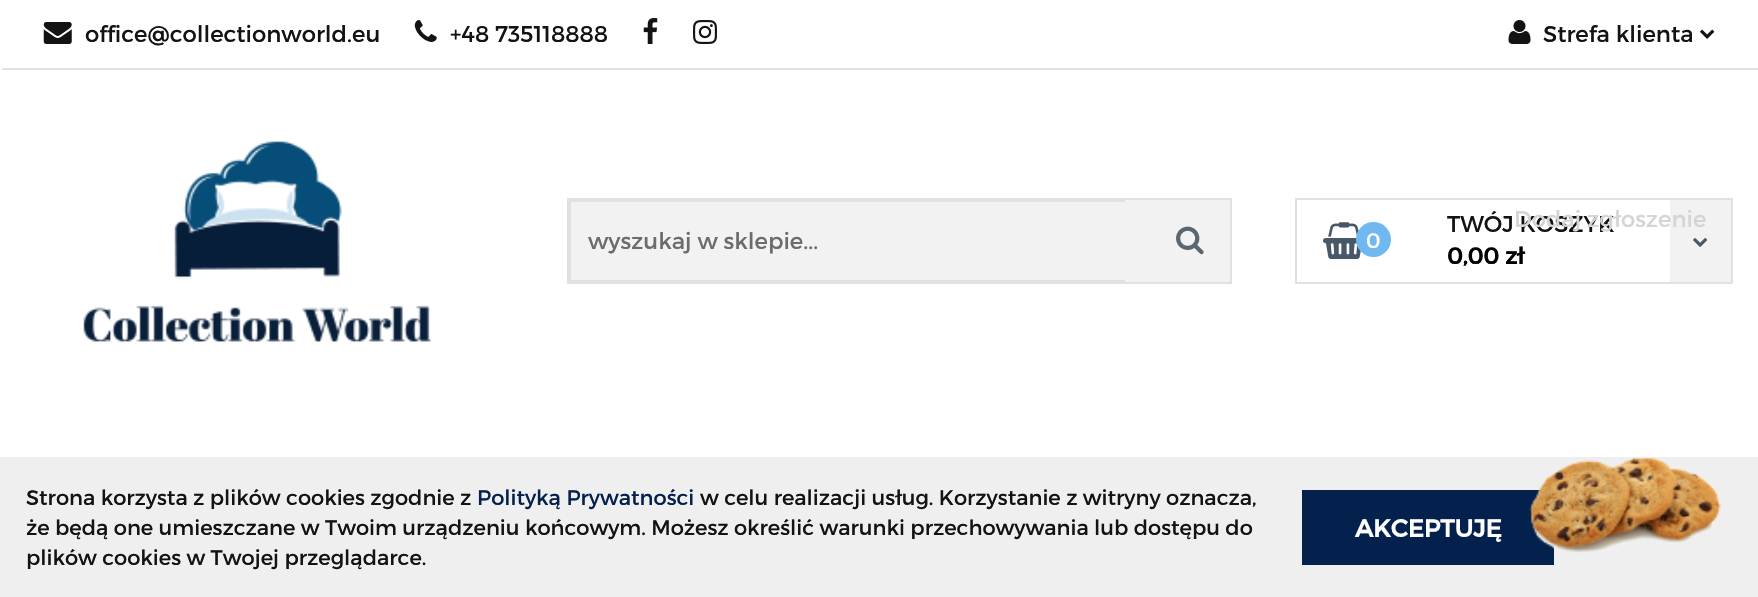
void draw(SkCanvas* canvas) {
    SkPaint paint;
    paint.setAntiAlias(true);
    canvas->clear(0xFFFFFFFF);
    canvas->drawImageRect(SkImages::DeferredFromEncodedData(SkData::MakeFromFileName("img1.png")), SkRect::MakeXYWH(43, 22, 29, 22), SkSamplingOptions());
    SkFont font1(fontMgr->matchFamilyStyle("Montserrat", SkFontStyle::Normal()), 22.75f);
    font1.setSubpixel(true);
    paint.setColor(0xFF131313);
    canvas->drawString("office@collectionworld.eu", 85, 42, font1, paint);
    canvas->drawImageRect(SkImages::DeferredFromEncodedData(SkData::MakeFromFileName("img2.png")), SkRect::MakeXYWH(414, 20, 23, 22), SkSamplingOptions());
    canvas->drawString("+48 735118888", 450, 42, font1, paint);
    canvas->drawImageRect(SkImages::DeferredFromEncodedData(SkData::MakeFromFileName("img3.png")), SkRect::MakeXYWH(643, 18, 15, 26), SkSamplingOptions());
    canvas->drawImageRect(SkImages::DeferredFromEncodedData(SkData::MakeFromFileName("img4.png")), SkRect::MakeXYWH(693, 20, 24, 24), SkSamplingOptions());
    canvas->drawImageRect(SkImages::DeferredFromEncodedData(SkData::MakeFromFileName("img5.png")), SkRect::MakeXYWH(1508, 20, 23, 24), SkSamplingOptions());
    canvas->drawString("Strefa klienta", 1543, 42, font1, paint);
    canvas->drawImageRect(SkImages::DeferredFromEncodedData(SkData::MakeFromFileName("img6.png")), SkRect::MakeXYWH(1700, 29, 15, 10), SkSamplingOptions());
    paint.setStyle(SkPaint::kStroke_Style);
    paint.setStrokeWidth(2);
    paint.setColor(0xFFE1E1E1);
    canvas->drawRect(SkRect::MakeXYWH(1296, 199, 436, 84), paint);
    paint.setStyle(SkPaint::kFill_Style);
    paint.setColor(0xFF131313);
    canvas->drawString("TWÓJ KOSZYK", 1447, 232, font1, paint);
    paint.setColor(0xFFF2F2F2);
    canvas->drawRect(SkRect::MakeXYWH(1670, 200, 61, 82), paint);
    paint.setColor(0xFFD5D5D5);
    canvas->drawString("Dodaj zgłoszenie", 1514, 227, font1, paint);
    paint.setColor(0xFFE1E1E1);
    canvas->drawRect(SkRect::MakeXYWH(2, 68, 1756, 2), paint);
    canvas->drawImageRect(SkImages::DeferredFromEncodedData(SkData::MakeFromFileName("img7.png")), SkRect::MakeXYWH(83, 141, 348, 201), SkSamplingOptions());
    paint.setColor(0xFFF2F2F2);
    canvas->drawRect(SkRect::MakeXYWH(571, 200, 659, 82), paint);
    paint.setStyle(SkPaint::kStroke_Style);
    paint.setColor(0xFFE1E1E1);
    canvas->drawRect(SkRect::MakeXYWH(568, 199, 663, 84), paint);
    paint.setStyle(SkPaint::kFill_Style);
    canvas->drawRect(SkRect::MakeXYWH(569, 200, 556, 2), paint);
    canvas->drawRect(SkRect::MakeXYWH(569, 280, 556, 2), paint);
    canvas->drawRect(SkRect::MakeXYWH(569, 200, 2, 82), paint);
    paint.setColor(0xFF6C6C6C);
    canvas->drawString("wyszukaj w sklepie...", 588, 249, font1, paint);
    canvas->drawImageRect(SkImages::DeferredFromEncodedData(SkData::MakeFromFileName("img8.png")), SkRect::MakeXYWH(1176, 226, 28, 29), SkSamplingOptions());
    canvas->drawImageRect(SkImages::DeferredFromEncodedData(SkData::MakeFromFileName("img9.png")), SkRect::MakeXYWH(1323, 222, 38, 37), SkSamplingOptions());
    paint.setColor(0xFF6FB8F0);
    canvas->drawCircle(1373.5f, 239.5f, 17.5f, paint);
    SkFont font2(fontMgr->matchFamilyStyle("Montserrat", SkFontStyle::Normal()), 21);
    font2.setSubpixel(true);
    paint.setColor(0xFFFFFFFF);
    canvas->drawString("0", 1366, 248, font2, paint);
    SkFont font3(fontMgr->matchFamilyStyle("Montserrat", SkFontStyle::Bold()), 22.75f);
    font3.setSubpixel(true);
    paint.setColor(0xFF000000);
    canvas->drawString("0,00 zł", 1447, 264, font3, paint);
    canvas->drawImageRect(SkImages::DeferredFromEncodedData(SkData::MakeFromFileName("img10.png")), SkRect::MakeXYWH(1693, 238, 15, 9), SkSamplingOptions());
    paint.setColor(0xFFEFEFEF);
    canvas->drawRect(SkRect::MakeXYWH(0, 457, 1758, 140), paint);
    paint.setColor(0xFF131313);
    canvas->drawString("Strona korzysta z plików cookies zgodnie z", 26, 505, font2, paint);
    paint.setColor(0xFF04204D);
    canvas->drawString("Polityką Prywatności", 477, 505, font2, paint);
    paint.setColor(0xFF131313);
    canvas->drawString("w celu realizacji usług. Korzystanie z witryny oznacza,", 700, 505, font2, paint);
    canvas->drawString("że będą one umieszczane w Twoim urządzeniu końcowym. Możesz określić warunki przechowywania lub dostępu do", 26, 535, font2, paint);
    canvas->drawString("plików cookies w Twojej przeglądarce.", 26, 565, font2, paint);
    paint.setColor(0xFF04204D);
    canvas->drawRect(SkRect::MakeXYWH(1302, 490, 252, 75), paint);
    SkFont font4(fontMgr->matchFamilyStyle("Montserrat", SkFontStyle::Bold()), 24.5f);
    font4.setSubpixel(true);
    paint.setColor(0xFFFFFFFF);
    canvas->drawString("AKCEPTUJĘ", 1355, 537, font4, paint);
    canvas->drawImageRect(SkImages::DeferredFromEncodedData(SkData::MakeFromFileName("img11.png")), SkRect::MakeXYWH(1529, 456, 192, 97), SkSamplingOptions());
}
